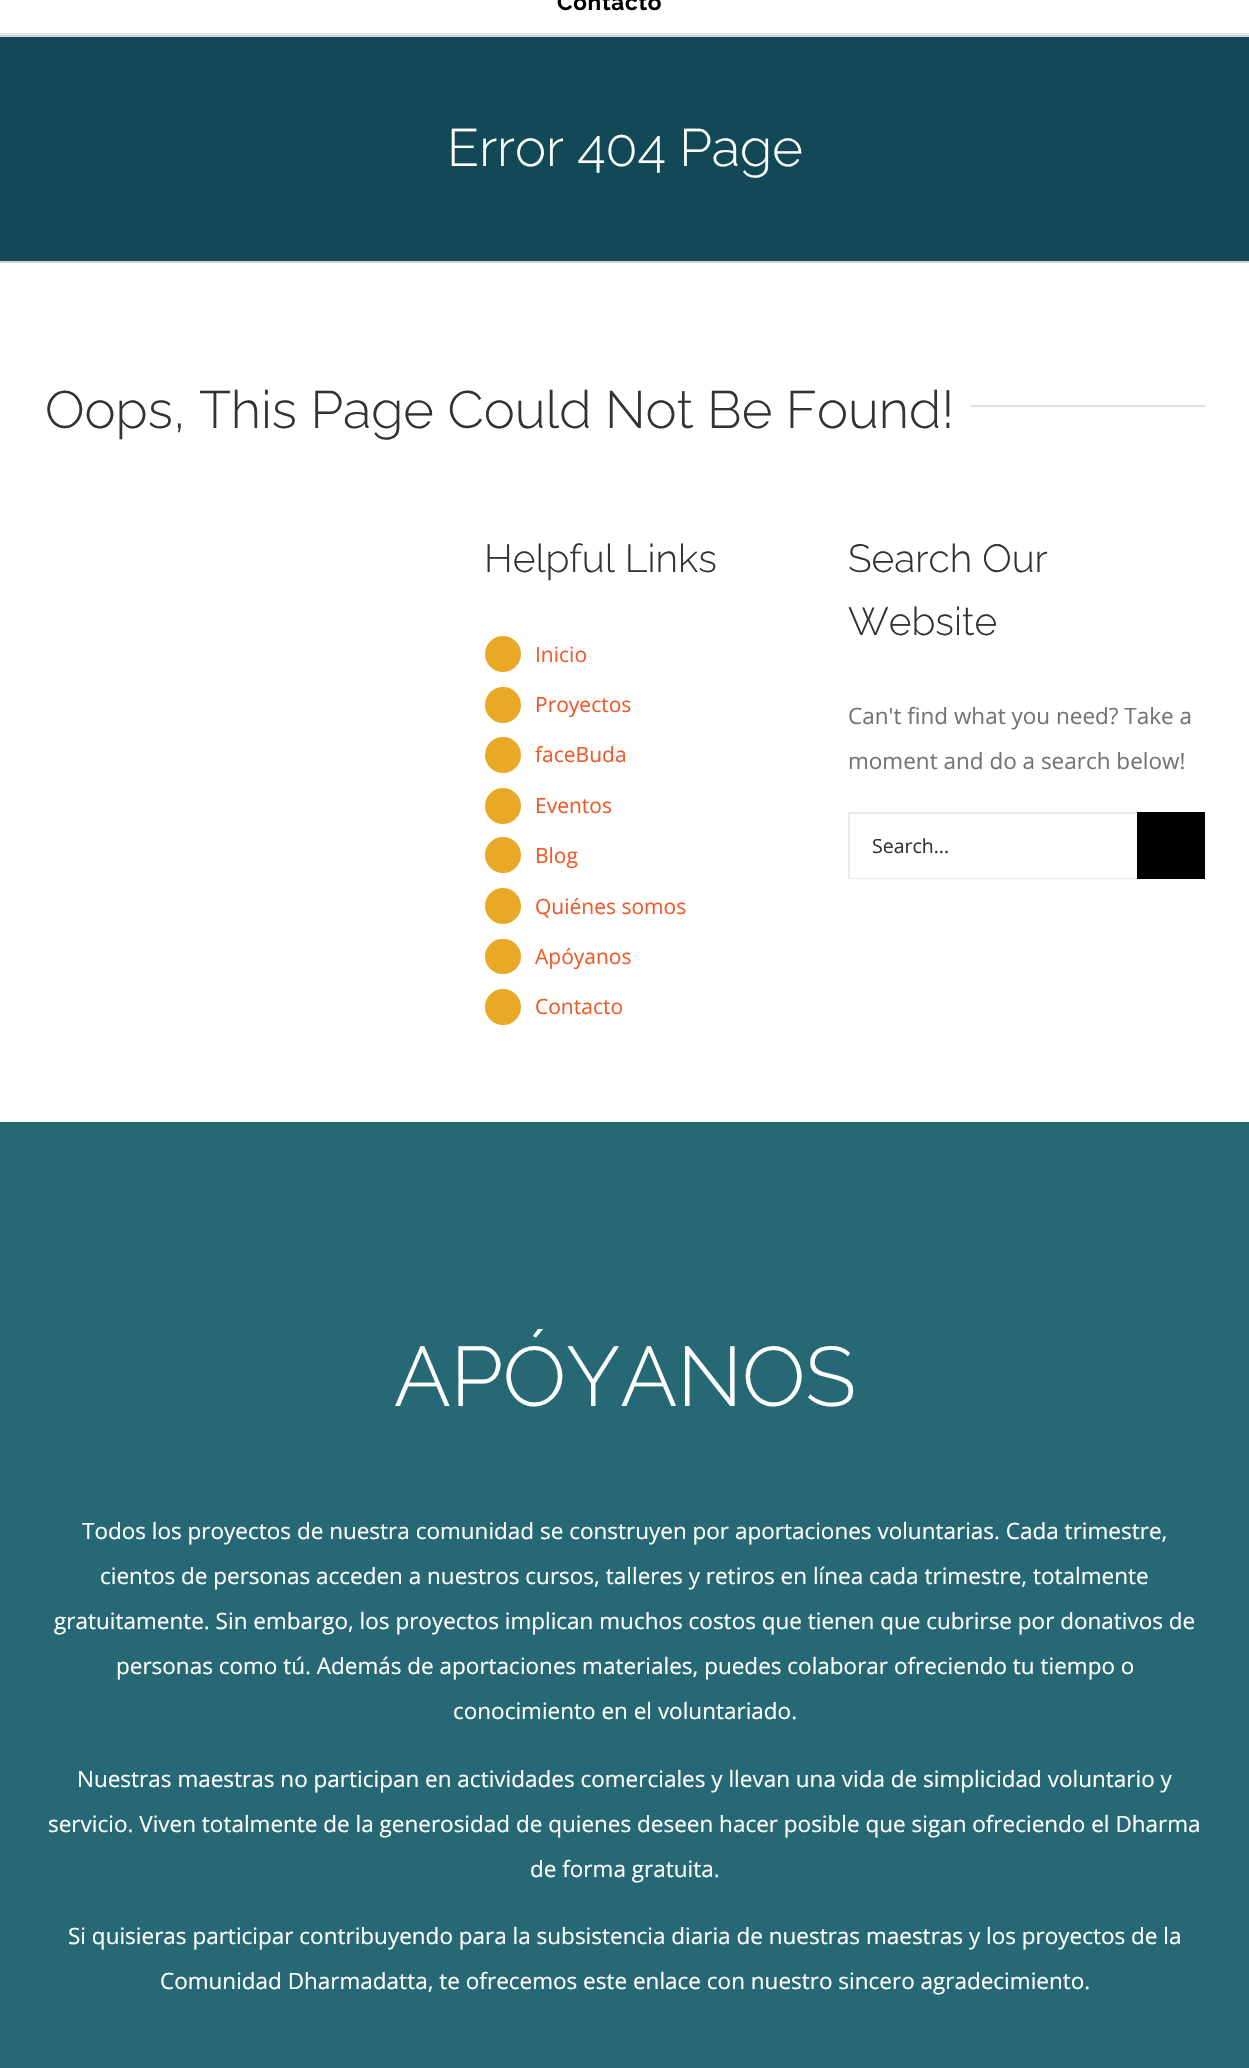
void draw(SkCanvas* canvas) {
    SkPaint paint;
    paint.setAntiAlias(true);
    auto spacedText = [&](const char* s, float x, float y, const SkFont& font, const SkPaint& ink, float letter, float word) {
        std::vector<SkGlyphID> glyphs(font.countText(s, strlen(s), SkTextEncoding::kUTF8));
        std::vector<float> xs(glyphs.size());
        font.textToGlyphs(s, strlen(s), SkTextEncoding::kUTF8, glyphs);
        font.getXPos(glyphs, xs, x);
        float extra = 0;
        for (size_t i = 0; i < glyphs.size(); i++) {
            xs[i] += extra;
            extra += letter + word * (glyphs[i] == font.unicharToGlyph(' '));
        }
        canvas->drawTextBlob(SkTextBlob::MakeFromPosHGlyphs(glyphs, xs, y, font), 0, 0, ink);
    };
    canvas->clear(0xFF134957);
    paint.setColor(0xFFFFFFFF);
    canvas->drawRect(SkRect::MakeXYWH(0, 0, 1249, 33), paint);
    paint.setColor(0xFFE5E5E5);
    canvas->drawRect(SkRect::MakeXYWH(0, 33, 1249, 2), paint);
    SkFont font1(fontMgr->matchFamilyStyle("Raleway", SkFontStyle::Bold()), 22.5f);
    font1.setSubpixel(true);
    paint.setColor(0xFF000000);
    spacedText("Contacto", 557, 10, font1, paint, 0.75f, 0);
    paint.setColor(0xFFD2D3D4);
    canvas->drawRect(SkRect::MakeXYWH(0, 35, 1249, 2), paint);
    canvas->drawRect(SkRect::MakeXYWH(0, 261, 1249, 2), paint);
    SkFont font2(fontMgr->matchFamilyStyle("Raleway", SkFontStyle(300, SkFontStyle::kNormal_Width, SkFontStyle::kUpright_Slant)), 52.5f);
    font2.setSubpixel(true);
    paint.setColor(0xFFFFFFFF);
    canvas->drawString("Error 404 Page", 447, 166, font2, paint);
    canvas->drawRect(SkRect::MakeXYWH(0, 263, 1249, 859), paint);
    paint.setColor(0xFF333333);
    canvas->drawString("Oops, This Page Could Not Be Found!", 45, 428, font2, paint);
    paint.setColor(0xFFE0DEDE);
    canvas->drawRect(SkRect::MakeXYWH(971, 405, 234, 2), paint);
    SkFont font3(fontMgr->matchFamilyStyle("Raleway", SkFontStyle(300, SkFontStyle::kNormal_Width, SkFontStyle::kUpright_Slant)), 39);
    font3.setSubpixel(true);
    paint.setColor(0xFF333333);
    canvas->drawString("Helpful Links", 484, 572, font3, paint);
    paint.setColor(0xFFE9A825);
    canvas->drawCircle(503, 654, 18, paint);
    SkFont font4(fontMgr->matchFamilyStyle("Open Sans", SkFontStyle::Normal()), 21);
    font4.setSubpixel(true);
    paint.setColor(0xFFF05A28);
    canvas->drawString("Inicio", 535, 662, font4, paint);
    paint.setColor(0xFFE9A825);
    canvas->drawCircle(503, 705, 18, paint);
    paint.setColor(0xFFF05A28);
    canvas->drawString("Proyectos", 535, 712, font4, paint);
    paint.setColor(0xFFE9A825);
    canvas->drawCircle(503, 755, 18, paint);
    paint.setColor(0xFFF05A28);
    canvas->drawString("faceBuda", 535, 762, font4, paint);
    paint.setColor(0xFFE9A825);
    canvas->drawCircle(503, 806, 18, paint);
    paint.setColor(0xFFF05A28);
    canvas->drawString("Eventos", 535, 813, font4, paint);
    paint.setColor(0xFFE9A825);
    canvas->drawCircle(503, 855, 18, paint);
    paint.setColor(0xFFF05A28);
    canvas->drawString("Blog", 535, 863, font4, paint);
    paint.setColor(0xFFE9A825);
    canvas->drawCircle(503, 906, 18, paint);
    paint.setColor(0xFFF05A28);
    canvas->drawString("Quiénes somos", 535, 914, font4, paint);
    paint.setColor(0xFFE9A825);
    canvas->drawRoundRect(SkRect::MakeXYWH(485, 939, 36, 35), 17.5f, 17.5f, paint);
    paint.setColor(0xFFF05A28);
    canvas->drawString("Apóyanos", 535, 964, font4, paint);
    paint.setColor(0xFFE9A825);
    canvas->drawCircle(503, 1007, 18, paint);
    paint.setColor(0xFFF05A28);
    canvas->drawString("Contacto", 535, 1014, font4, paint);
    paint.setColor(0xFF333333);
    canvas->drawString("Search Our", 848, 572, font3, paint);
    canvas->drawString("Website", 848, 635, font3, paint);
    SkFont font5(fontMgr->matchFamilyStyle("Open Sans", SkFontStyle::Normal()), 22.5f);
    font5.setSubpixel(true);
    paint.setColor(0xFF747474);
    canvas->drawString("Can't find what you need? Take a", 848, 724, font5, paint);
    canvas->drawString("moment and do a search below!", 848, 769, font5, paint);
    paint.setColor(0xFFEAEAEA);
    canvas->drawRect(SkRect::MakeXYWH(848, 812, 289, 2), paint);
    canvas->drawRect(SkRect::MakeXYWH(848, 878, 289, 1), paint);
    canvas->drawRect(SkRect::MakeXYWH(848, 812, 2, 67), paint);
    SkFont font6(fontMgr->matchFamilyStyle("Open Sans", SkFontStyle::Normal()), 19.5f);
    font6.setSubpixel(true);
    paint.setColor(0xFF333333);
    canvas->drawString("Search...", 872, 853, font6, paint);
    paint.setColor(0xFF000000);
    canvas->drawRect(SkRect::MakeXYWH(1137, 812, 68, 67), paint);
    paint.setColor(0xFF266975);
    canvas->drawRect(SkRect::MakeXYWH(0, 1122, 1249, 946), paint);
    SkFont font7(fontMgr->matchFamilyStyle("Raleway", SkFontStyle(300, SkFontStyle::kNormal_Width, SkFontStyle::kUpright_Slant)), 84);
    font7.setSubpixel(true);
    paint.setColor(0xFFFFFFFF);
    canvas->drawString("APÓYANOS", 394, 1406, font7, paint);
    canvas->drawString("Todos los proyectos de nuestra comunidad se construyen por aportaciones voluntarias. Cada trimestre,", 82, 1539, font5, paint);
    canvas->drawString("cientos de personas acceden a nuestros cursos, talleres y retiros en línea cada trimestre, totalmente", 100, 1584, font5, paint);
    canvas->drawString("gratuitamente. Sin embargo, los proyectos implican muchos costos que tienen que cubrirse por donativos de", 54, 1629, font5, paint);
    canvas->drawString("personas como tú. Además de aportaciones materiales, puedes colaborar ofreciendo tu tiempo o", 116, 1674, font5, paint);
    canvas->drawString("conocimiento en el voluntariado.", 453, 1719, font5, paint);
    canvas->drawString("Nuestras maestras no participan en actividades comerciales y llevan una vida de simplicidad voluntario y", 77, 1787, font5, paint);
    canvas->drawString("servicio. Viven totalmente de la generosidad de quienes deseen hacer posible que sigan ofreciendo el Dharma", 48, 1832, font5, paint);
    canvas->drawString("de forma gratuita.", 530, 1877, font5, paint);
    canvas->drawString("Si quisieras participar contribuyendo para la subsistencia diaria de nuestras maestras y los proyectos de la", 68, 1944, font5, paint);
    canvas->drawString("Comunidad Dharmadatta, te ofrecemos este enlace con nuestro sincero agradecimiento.", 160, 1989, font5, paint);
}
